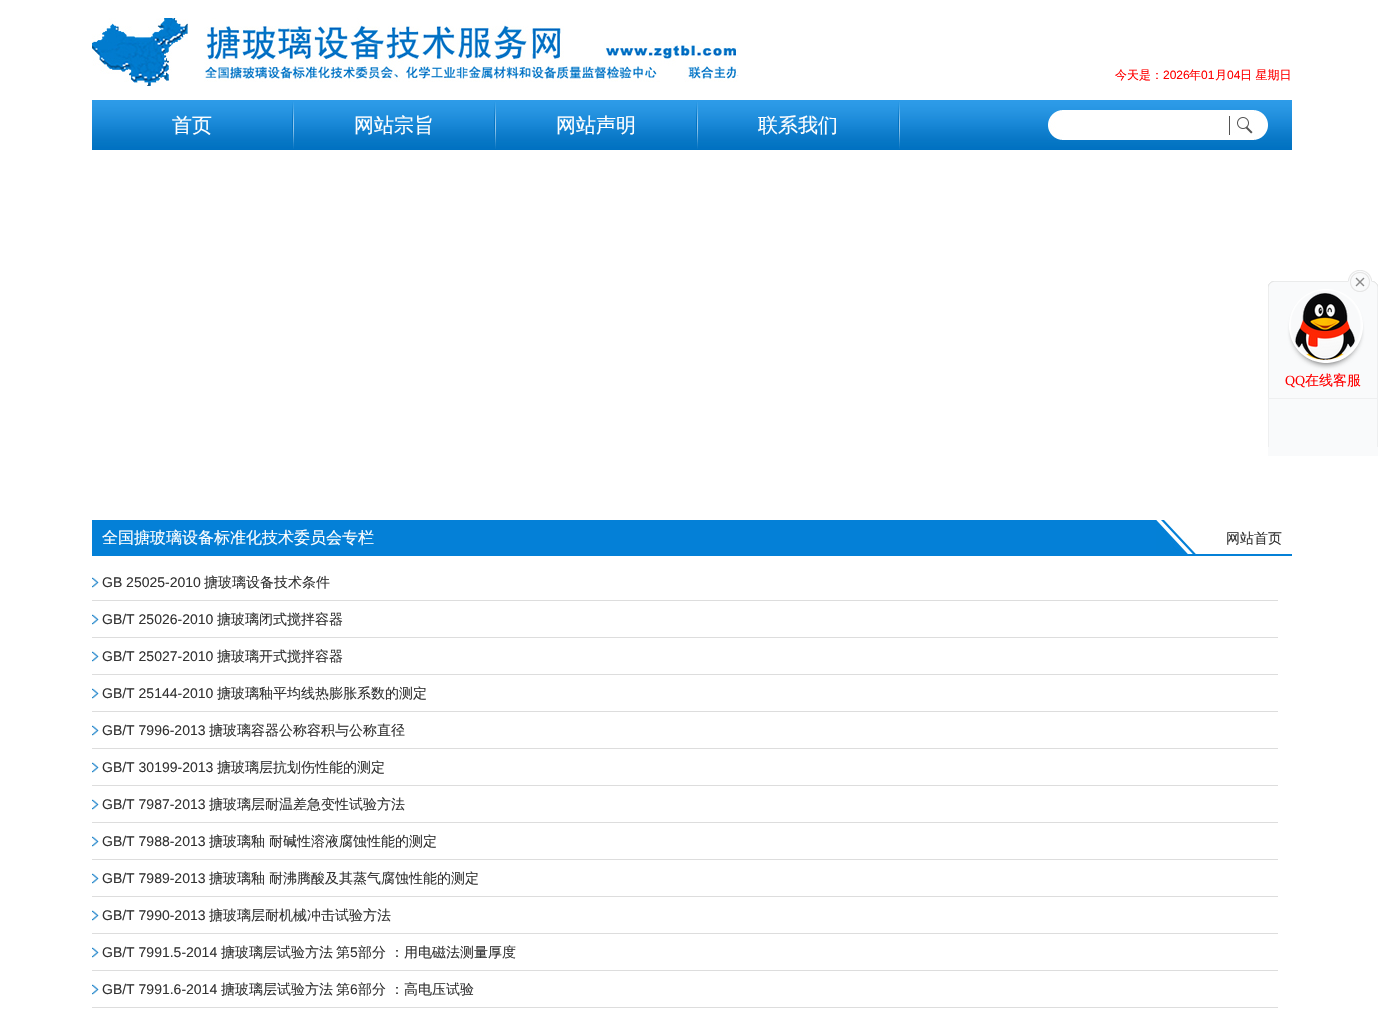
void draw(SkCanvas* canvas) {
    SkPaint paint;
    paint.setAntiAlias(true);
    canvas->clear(0xFFFFFFFF);
    canvas->drawImageRect(SkImages::DeferredFromEncodedData(SkData::MakeFromFileName("img1.png")), SkRect::MakeXYWH(92, 18, 647, 68), SkSamplingOptions());
    SkFont font1(fontMgr->matchFamilyStyle("WenQuanYi Zen Hei", SkFontStyle(500, SkFontStyle::kNormal_Width, SkFontStyle::kUpright_Slant)), 12);
    font1.setSubpixel(true);
    paint.setColor(0xFFFF0000);
    canvas->drawString("今天是：", 1115, 79, font1, paint);
    SkFont font2(fontMgr->matchFamilyStyle("Liberation Sans", SkFontStyle::Normal()), 12);
    font2.setSubpixel(true);
    canvas->drawString("2026", 1163, 79, font2, paint);
    canvas->drawString("年", 1189, 79, font1, paint);
    canvas->drawString("01", 1201, 79, font2, paint);
    canvas->drawString("月", 1215, 79, font1, paint);
    canvas->drawString("04", 1227, 79, font2, paint);
    canvas->drawString("日 星期日", 1240, 79, font1, paint);
    canvas->drawImageRect(SkImages::DeferredFromEncodedData(SkData::MakeFromFileName("img2.png")), SkRect::MakeXYWH(92, 100, 1200, 50), SkSamplingOptions());
    SkFont font3(fontMgr->matchFamilyStyle("WenQuanYi Zen Hei", SkFontStyle(500, SkFontStyle::kNormal_Width, SkFontStyle::kUpright_Slant)), 20);
    font3.setSubpixel(true);
    paint.setColor(0xFFFFFFFF);
    canvas->drawString("首页", 172, 132, font3, paint);
    canvas->drawImageRect(SkImages::DeferredFromEncodedData(SkData::MakeFromFileName("img3.png")), SkRect::MakeXYWH(292, 102, 2, 47), SkSamplingOptions());
    canvas->drawString("网站宗旨", 354, 132, font3, paint);
    canvas->drawImageRect(SkImages::DeferredFromEncodedData(SkData::MakeFromFileName("img3.png")), SkRect::MakeXYWH(494, 102, 2, 47), SkSamplingOptions());
    canvas->drawString("网站声明", 556, 132, font3, paint);
    canvas->drawImageRect(SkImages::DeferredFromEncodedData(SkData::MakeFromFileName("img3.png")), SkRect::MakeXYWH(696, 102, 2, 47), SkSamplingOptions());
    canvas->drawString("联系我们", 758, 132, font3, paint);
    canvas->drawImageRect(SkImages::DeferredFromEncodedData(SkData::MakeFromFileName("img3.png")), SkRect::MakeXYWH(898, 102, 2, 47), SkSamplingOptions());
    canvas->drawImageRect(SkImages::DeferredFromEncodedData(SkData::MakeFromFileName("img4.png")), SkRect::MakeXYWH(1048, 110, 220, 30), SkSamplingOptions());
    canvas->drawImageRect(SkImages::DeferredFromEncodedData(SkData::MakeFromFileName("img5.png")), SkRect::MakeXYWH(1268, 270, 110, 22), SkSamplingOptions());
    canvas->drawImageRect(SkImages::DeferredFromEncodedData(SkData::MakeFromFileName("img6.png")), SkRect::MakeXYWH(1268, 292, 110, 107), SkSamplingOptions());
    SkFont font4(fontMgr->matchFamilyStyle("Liberation Serif", SkFontStyle::Normal()), 14);
    font4.setSubpixel(true);
    paint.setColor(0xFFFF0000);
    canvas->drawString("QQ", 1285, 385, font4, paint);
    SkFont font5(fontMgr->matchFamilyStyle("WenQuanYi Zen Hei", SkFontStyle(500, SkFontStyle::kNormal_Width, SkFontStyle::kUpright_Slant)), 14);
    font5.setSubpixel(true);
    canvas->drawString("在线客服", 1305, 385, font5, paint);
    paint.setColor(0xFFF9FAFB);
    canvas->drawRect(SkRect::MakeXYWH(1269, 399, 108, 48), paint);
    paint.setColor(0xFFEEEFF0);
    canvas->drawRect(SkRect::MakeXYWH(1377, 399, 1, 48), paint);
    canvas->drawRect(SkRect::MakeXYWH(1268, 399, 1, 48), paint);
    paint.setColor(0xFFF9FAFB);
    canvas->drawRect(SkRect::MakeXYWH(1268, 447, 110, 9), paint);
    paint.setColor(0xFF0480D7);
    canvas->drawRect(SkRect::MakeXYWH(92, 520, 1200, 36), paint);
    SkFont font6(fontMgr->matchFamilyStyle("WenQuanYi Zen Hei", SkFontStyle(500, SkFontStyle::kNormal_Width, SkFontStyle::kUpright_Slant)), 16);
    font6.setSubpixel(true);
    paint.setColor(0xFFFFFFFF);
    canvas->drawString("全国搪玻璃设备标准化技术委员会专栏", 102, 543, font6, paint);
    canvas->drawImageRect(SkImages::DeferredFromEncodedData(SkData::MakeFromFileName("img7.png")), SkRect::MakeXYWH(1156, 520, 136, 34), SkSamplingOptions());
    paint.setColor(0xFF333333);
    canvas->drawString("网站首页", 1226, 543, font5, paint);
    canvas->drawImageRect(SkImages::DeferredFromEncodedData(SkData::MakeFromFileName("img8.png")), SkRect::MakeXYWH(92, 577, 7, 11), SkSamplingOptions());
    paint.setColor(0xFFDDDDDD);
    canvas->drawRect(SkRect::MakeXYWH(92, 600, 1186, 1), paint);
    SkFont font7(fontMgr->matchFamilyStyle("Liberation Sans", SkFontStyle::Normal()), 14);
    font7.setSubpixel(true);
    paint.setColor(0xFF333333);
    canvas->drawString("GB 25025-2010", 102, 587, font7, paint);
    canvas->drawString("搪玻璃设备技术条件", 204, 587, font5, paint);
    canvas->drawImageRect(SkImages::DeferredFromEncodedData(SkData::MakeFromFileName("img8.png")), SkRect::MakeXYWH(92, 614, 7, 11), SkSamplingOptions());
    paint.setColor(0xFFDDDDDD);
    canvas->drawRect(SkRect::MakeXYWH(92, 637, 1186, 1), paint);
    paint.setColor(0xFF333333);
    canvas->drawString("GB/T 25026-2010", 102, 624, font7, paint);
    canvas->drawString("搪玻璃闭式搅拌容器", 217, 624, font5, paint);
    canvas->drawImageRect(SkImages::DeferredFromEncodedData(SkData::MakeFromFileName("img8.png")), SkRect::MakeXYWH(92, 651, 7, 11), SkSamplingOptions());
    paint.setColor(0xFFDDDDDD);
    canvas->drawRect(SkRect::MakeXYWH(92, 674, 1186, 1), paint);
    paint.setColor(0xFF333333);
    canvas->drawString("GB/T 25027-2010", 102, 661, font7, paint);
    canvas->drawString("搪玻璃开式搅拌容器", 217, 661, font5, paint);
    canvas->drawImageRect(SkImages::DeferredFromEncodedData(SkData::MakeFromFileName("img8.png")), SkRect::MakeXYWH(92, 688, 7, 11), SkSamplingOptions());
    paint.setColor(0xFFDDDDDD);
    canvas->drawRect(SkRect::MakeXYWH(92, 711, 1186, 1), paint);
    paint.setColor(0xFF333333);
    canvas->drawString("GB/T 25144-2010", 102, 698, font7, paint);
    canvas->drawString("搪玻璃釉平均线热膨胀系数的测定", 217, 698, font5, paint);
    canvas->drawImageRect(SkImages::DeferredFromEncodedData(SkData::MakeFromFileName("img8.png")), SkRect::MakeXYWH(92, 725, 7, 11), SkSamplingOptions());
    paint.setColor(0xFFDDDDDD);
    canvas->drawRect(SkRect::MakeXYWH(92, 748, 1186, 1), paint);
    paint.setColor(0xFF333333);
    canvas->drawString("GB/T 7996-2013", 102, 735, font7, paint);
    canvas->drawString("搪玻璃容器公称容积与公称直径", 209, 735, font5, paint);
    canvas->drawImageRect(SkImages::DeferredFromEncodedData(SkData::MakeFromFileName("img8.png")), SkRect::MakeXYWH(92, 762, 7, 11), SkSamplingOptions());
    paint.setColor(0xFFDDDDDD);
    canvas->drawRect(SkRect::MakeXYWH(92, 785, 1186, 1), paint);
    paint.setColor(0xFF333333);
    canvas->drawString("GB/T 30199-2013", 102, 772, font7, paint);
    canvas->drawString("搪玻璃层抗划伤性能的测定", 217, 772, font5, paint);
    canvas->drawImageRect(SkImages::DeferredFromEncodedData(SkData::MakeFromFileName("img8.png")), SkRect::MakeXYWH(92, 799, 7, 11), SkSamplingOptions());
    paint.setColor(0xFFDDDDDD);
    canvas->drawRect(SkRect::MakeXYWH(92, 822, 1186, 1), paint);
    paint.setColor(0xFF333333);
    canvas->drawString("GB/T 7987-2013", 102, 809, font7, paint);
    canvas->drawString("搪玻璃层耐温差急变性试验方法", 209, 809, font5, paint);
    canvas->drawImageRect(SkImages::DeferredFromEncodedData(SkData::MakeFromFileName("img8.png")), SkRect::MakeXYWH(92, 836, 7, 11), SkSamplingOptions());
    paint.setColor(0xFFDDDDDD);
    canvas->drawRect(SkRect::MakeXYWH(92, 859, 1186, 1), paint);
    paint.setColor(0xFF333333);
    canvas->drawString("GB/T 7988-2013", 102, 846, font7, paint);
    canvas->drawString("搪玻璃釉", 209, 846, font5, paint);
    canvas->drawString("耐碱性溶液腐蚀性能的测定", 269, 846, font5, paint);
    canvas->drawImageRect(SkImages::DeferredFromEncodedData(SkData::MakeFromFileName("img8.png")), SkRect::MakeXYWH(92, 873, 7, 11), SkSamplingOptions());
    paint.setColor(0xFFDDDDDD);
    canvas->drawRect(SkRect::MakeXYWH(92, 896, 1186, 1), paint);
    paint.setColor(0xFF333333);
    canvas->drawString("GB/T 7989-2013", 102, 883, font7, paint);
    canvas->drawString("搪玻璃釉", 209, 883, font5, paint);
    canvas->drawString("耐沸腾酸及其蒸气腐蚀性能的测定", 269, 883, font5, paint);
    canvas->drawImageRect(SkImages::DeferredFromEncodedData(SkData::MakeFromFileName("img8.png")), SkRect::MakeXYWH(92, 910, 7, 11), SkSamplingOptions());
    paint.setColor(0xFFDDDDDD);
    canvas->drawRect(SkRect::MakeXYWH(92, 933, 1186, 1), paint);
    paint.setColor(0xFF333333);
    canvas->drawString("GB/T 7990-2013", 102, 920, font7, paint);
    canvas->drawString("搪玻璃层耐机械冲击试验方法", 209, 920, font5, paint);
    canvas->drawImageRect(SkImages::DeferredFromEncodedData(SkData::MakeFromFileName("img8.png")), SkRect::MakeXYWH(92, 947, 7, 11), SkSamplingOptions());
    paint.setColor(0xFFDDDDDD);
    canvas->drawRect(SkRect::MakeXYWH(92, 970, 1186, 1), paint);
    paint.setColor(0xFF333333);
    canvas->drawString("GB/T 7991.5-2014", 102, 957, font7, paint);
    canvas->drawString("搪玻璃层试验方法", 221, 957, font5, paint);
    canvas->drawString("第", 336, 957, font5, paint);
    canvas->drawString("5", 350, 957, font7, paint);
    canvas->drawString("部分", 358, 957, font5, paint);
    canvas->drawString("：用电磁法测量厚度", 390, 957, font5, paint);
    canvas->drawImageRect(SkImages::DeferredFromEncodedData(SkData::MakeFromFileName("img8.png")), SkRect::MakeXYWH(92, 984, 7, 11), SkSamplingOptions());
    paint.setColor(0xFFDDDDDD);
    canvas->drawRect(SkRect::MakeXYWH(92, 1007, 1186, 1), paint);
    paint.setColor(0xFF333333);
    canvas->drawString("GB/T 7991.6-2014", 102, 994, font7, paint);
    canvas->drawString("搪玻璃层试验方法", 221, 994, font5, paint);
    canvas->drawString("第", 336, 994, font5, paint);
    canvas->drawString("6", 350, 994, font7, paint);
    canvas->drawString("部分", 358, 994, font5, paint);
    canvas->drawString("：高电压试验", 390, 994, font5, paint);
}
